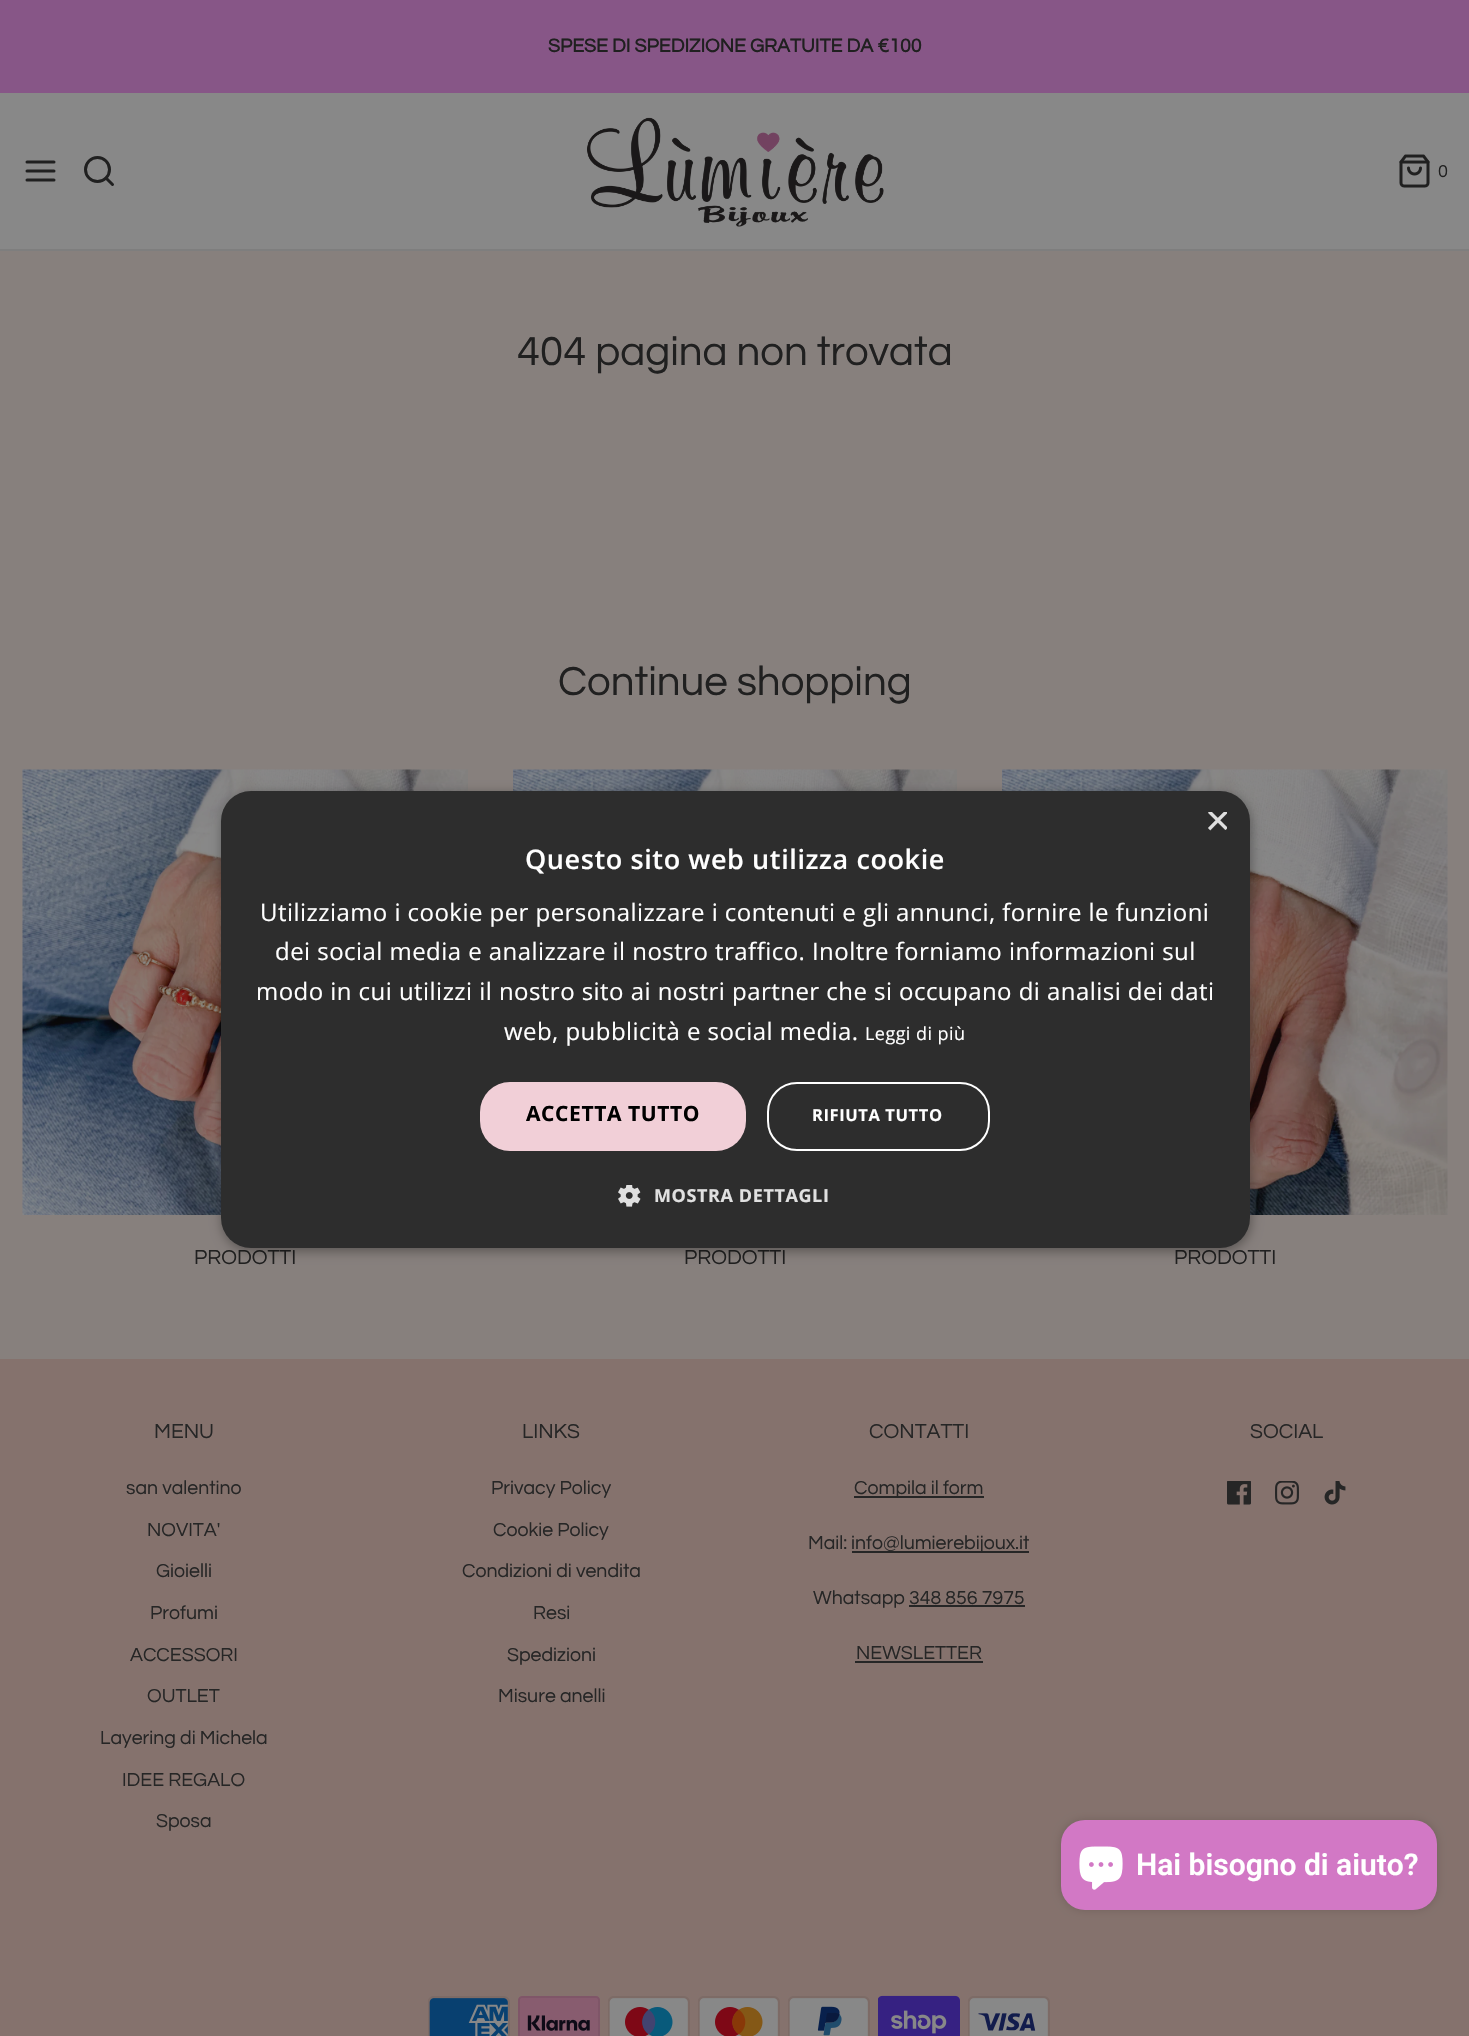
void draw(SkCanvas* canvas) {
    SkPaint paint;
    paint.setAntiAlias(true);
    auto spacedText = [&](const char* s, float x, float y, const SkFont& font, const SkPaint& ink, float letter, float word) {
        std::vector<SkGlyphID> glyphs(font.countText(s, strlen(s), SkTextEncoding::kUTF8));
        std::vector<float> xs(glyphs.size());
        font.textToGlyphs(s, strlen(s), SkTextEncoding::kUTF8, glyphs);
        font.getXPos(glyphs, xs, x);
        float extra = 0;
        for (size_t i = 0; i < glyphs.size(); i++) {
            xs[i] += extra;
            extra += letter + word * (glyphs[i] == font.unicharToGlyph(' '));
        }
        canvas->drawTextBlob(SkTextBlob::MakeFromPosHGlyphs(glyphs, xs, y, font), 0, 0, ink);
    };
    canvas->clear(0xFF87807D);
    paint.setColor(0xFF875687);
    canvas->drawRect(SkRect::MakeXYWH(0, 0, 1469, 93), paint);
    SkFont font1(fontMgr->matchFamilyStyle("Questrial", SkFontStyle::Bold()), 19.5f);
    font1.setSubpixel(true);
    paint.setColor(0xFF202020);
    canvas->drawString("SPESE DI SPEDIZIONE GRATUITE DA €100", 548, 52, font1, paint);
    paint.setColor(0xFF888888);
    canvas->drawRect(SkRect::MakeXYWH(0, 93, 1469, 156), paint);
    paint.setColor(0xFF7E7E7E);
    canvas->drawRect(SkRect::MakeXYWH(0, 249, 1469, 2), paint);
    paint.setStyle(SkPaint::kStroke_Style);
    paint.setStrokeWidth(3);
    paint.setStrokeCap(SkPaint::kRound_Cap);
    paint.setStrokeJoin(SkPaint::kRound_Join);
    paint.setColor(0xFF202020);
    canvas->drawPath(SkPathBuilder().moveTo(27, 171).lineTo(54, 171).moveTo(27, 162).lineTo(54, 162).moveTo(27, 180).lineTo(54, 180).detach(), paint);
    paint.setStrokeCap(SkPaint::kButt_Cap);
    paint.setStrokeJoin(SkPaint::kMiter_Join);
    canvas->drawCircle(97.5f, 169.5f, 12, paint);
    paint.setStrokeCap(SkPaint::kRound_Cap);
    paint.setStrokeJoin(SkPaint::kRound_Join);
    canvas->drawPath(SkPathBuilder().moveTo(112.5f, 184.5f).lineTo(106, 178).detach(), paint);
    canvas->drawImageRect(SkImages::DeferredFromEncodedData(SkData::MakeFromFileName("img1.png")), SkRect::MakeXYWH(587, 117, 297, 110), SkSamplingOptions());
    canvas->drawImageRect(SkImages::DeferredFromEncodedData(SkData::MakeFromFileName("img2.png")), SkRect::MakeXYWH(1399, 154, 31, 34), SkSamplingOptions());
    SkFont font2(fontMgr->matchFamilyStyle("Questrial", SkFontStyle::Normal()), 18);
    font2.setSubpixel(true);
    paint.setStyle(SkPaint::kFill_Style);
    canvas->drawString("0", 1438, 177, font2, paint);
    SkFont font3(fontMgr->matchFamilyStyle("Questrial", SkFontStyle::Normal()), 42);
    font3.setSubpixel(true);
    canvas->drawString("404 pagina non trovata", 517, 365, font3, paint);
    canvas->drawString("Continue shopping", 558, 695, font3, paint);
    canvas->drawImageRect(SkImages::DeferredFromEncodedData(SkData::MakeFromFileName("img3.png")), SkRect::MakeXYWH(22, 769, 446, 446), SkSamplingOptions());
    SkFont font4(fontMgr->matchFamilyStyle("Questrial", SkFontStyle::Normal()), 21);
    font4.setSubpixel(true);
    canvas->drawString("PRODOTTI", 194, 1264, font4, paint);
    canvas->drawImageRect(SkImages::DeferredFromEncodedData(SkData::MakeFromFileName("img4.png")), SkRect::MakeXYWH(513, 769, 444, 22), SkSamplingOptions());
    canvas->drawString("PRODOTTI", 684, 1264, font4, paint);
    canvas->drawImageRect(SkImages::DeferredFromEncodedData(SkData::MakeFromFileName("img5.png")), SkRect::MakeXYWH(1002, 769, 446, 446), SkSamplingOptions());
    canvas->drawString("PRODOTTI", 1174, 1264, font4, paint);
    paint.setColor(0xFF85726D);
    canvas->drawRect(SkRect::MakeXYWH(0, 1359, 1469, 677), paint);
    paint.setColor(0xFF262626);
    canvas->drawString("MENU", 154, 1438, font4, paint);
    SkFont font5(fontMgr->matchFamilyStyle("Questrial", SkFontStyle::Normal()), 19.5f);
    font5.setSubpixel(true);
    canvas->drawString("san valentino", 126, 1494, font5, paint);
    canvas->drawString("NOVITA'", 147, 1536, font5, paint);
    canvas->drawString("Gioielli", 156, 1577, font5, paint);
    canvas->drawString("Profumi", 150, 1619, font5, paint);
    canvas->drawString("ACCESSORI", 130, 1661, font5, paint);
    canvas->drawString("OUTLET", 147, 1702, font5, paint);
    canvas->drawString("Layering di Michela", 100, 1744, font5, paint);
    canvas->drawString("IDEE REGALO", 122, 1786, font5, paint);
    canvas->drawString("Sposa", 156, 1827, font5, paint);
    canvas->drawString("LINKS", 522, 1438, font4, paint);
    canvas->drawString("Privacy Policy", 491, 1494, font5, paint);
    canvas->drawString("Cookie Policy", 493, 1536, font5, paint);
    canvas->drawString("Condizioni di vendita", 462, 1577, font5, paint);
    canvas->drawString("Resi", 533, 1619, font5, paint);
    canvas->drawString("Spedizioni", 507, 1661, font5, paint);
    canvas->drawString("Misure anelli", 498, 1702, font5, paint);
    canvas->drawString("CONTATTI", 869, 1438, font4, paint);
    canvas->drawRect(SkRect::MakeXYWH(854, 1496, 130, 2), paint);
    canvas->drawString("Compila il form", 854, 1494, font5, paint);
    canvas->drawString("Mail:", 808, 1549, font5, paint);
    canvas->drawRect(SkRect::MakeXYWH(852, 1551, 177, 2), paint);
    canvas->drawString("info@lumierebijoux.it", 851, 1549, font5, paint);
    canvas->drawString("Whatsapp 348 856 7975", 813, 1604, font5, paint);
    canvas->drawRect(SkRect::MakeXYWH(909, 1605, 116, 2), paint);
    canvas->drawString("NEWSLETTER", 856, 1659, font5, paint);
    canvas->drawRect(SkRect::MakeXYWH(855, 1661, 128, 2), paint);
    canvas->drawString("SOCIAL", 1250, 1438, font4, paint);
    canvas->drawImageRect(SkImages::DeferredFromEncodedData(SkData::MakeFromFileName("img6.png")), SkRect::MakeXYWH(1227, 1481, 24, 24), SkSamplingOptions());
    canvas->drawImageRect(SkImages::DeferredFromEncodedData(SkData::MakeFromFileName("img7.png")), SkRect::MakeXYWH(1275, 1481, 24, 24), SkSamplingOptions());
    canvas->drawImageRect(SkImages::DeferredFromEncodedData(SkData::MakeFromFileName("img8.png")), SkRect::MakeXYWH(1324, 1481, 22, 24), SkSamplingOptions());
    canvas->drawImageRect(SkImages::DeferredFromEncodedData(SkData::MakeFromFileName("img9.png")), SkRect::MakeXYWH(428, 1996, 82, 40), SkSamplingOptions());
    canvas->drawImageRect(SkImages::DeferredFromEncodedData(SkData::MakeFromFileName("img10.png")), SkRect::MakeXYWH(518, 1996, 82, 40), SkSamplingOptions());
    canvas->drawImageRect(SkImages::DeferredFromEncodedData(SkData::MakeFromFileName("img11.png")), SkRect::MakeXYWH(608, 1996, 82, 40), SkSamplingOptions());
    canvas->drawImageRect(SkImages::DeferredFromEncodedData(SkData::MakeFromFileName("img12.png")), SkRect::MakeXYWH(698, 1996, 82, 40), SkSamplingOptions());
    canvas->drawImageRect(SkImages::DeferredFromEncodedData(SkData::MakeFromFileName("img13.png")), SkRect::MakeXYWH(788, 1996, 82, 40), SkSamplingOptions());
    canvas->drawImageRect(SkImages::DeferredFromEncodedData(SkData::MakeFromFileName("img14.png")), SkRect::MakeXYWH(878, 1995, 82, 41), SkSamplingOptions());
    canvas->drawImageRect(SkImages::DeferredFromEncodedData(SkData::MakeFromFileName("img15.png")), SkRect::MakeXYWH(968, 1996, 82, 40), SkSamplingOptions());
    paint.setColor(0x59000000);
    paint.setMaskFilter(SkMaskFilter::MakeBlur(kNormal_SkBlurStyle, 6));
    canvas->drawRoundRect(SkRect::MakeXYWH(222, 794, 1029, 457), 30, 30, paint);
    paint.setMaskFilter(nullptr);
    paint.setColor(0xFF2D2D2D);
    canvas->drawRoundRect(SkRect::MakeXYWH(221, 791, 1029, 457), 30, 30, paint);
    canvas->save();
    canvas->clipRect(SkRect::MakeXYWH(1205, 812, 22, 22));
    SkFont font6(fontMgr->matchFamilyStyle("Liberation Sans", SkFontStyle::Normal()), 44);
    font6.setSubpixel(true);
    paint.setColor(0xFFE0E0E0);
    canvas->drawString("×", 1205, 835, font6, paint);
    canvas->restore();
    SkFont font7(fontMgr->matchFamilyStyle("Open Sans", SkFontStyle(600, SkFontStyle::kNormal_Width, SkFontStyle::kUpright_Slant)), 27);
    font7.setSubpixel(true);
    paint.setColor(0xFFFFFFFF);
    spacedText("Questo sito web utilizza cookie", 525, 869, font7, paint, 0.6f, 0);
    SkFont font8(fontMgr->matchFamilyStyle("Open Sans", SkFontStyle::Normal()), 24);
    font8.setSubpixel(true);
    spacedText("Utilizziamo i cookie per personalizzare i contenuti e gli annunci, fornire le funzioni", 260, 921, font8, paint, 0.45f, 0);
    spacedText("dei social media e analizzare il nostro traffico. Inoltre forniamo informazioni sul", 275, 960, font8, paint, 0.45f, 0);
    spacedText("modo in cui utilizzi il nostro sito ai nostri partner che si occupano di analisi dei dati", 256, 1000, font8, paint, 0.45f, 0);
    spacedText("web, pubblicità e social media.", 504, 1040, font8, paint, 0.45f, 0);
    SkFont font9(fontMgr->matchFamilyStyle("Open Sans", SkFontStyle::Normal()), 18);
    font9.setSubpixel(true);
    spacedText("Leggi di più", 865, 1040, font9, paint, 0.45f, 0);
    paint.setColor(0xFFF1CFD7);
    canvas->drawRoundRect(SkRect::MakeXYWH(480, 1082, 266, 69), 30, 30, paint);
    SkFont font10(fontMgr->matchFamilyStyle("Open Sans", SkFontStyle::Bold()), 21);
    font10.setSubpixel(true);
    paint.setColor(0xFF000000);
    spacedText("ACCETTA TUTTO", 526, 1121, font10, paint, 0.6f, 0);
    paint.setStyle(SkPaint::kStroke_Style);
    paint.setStrokeWidth(2);
    paint.setStrokeCap(SkPaint::kButt_Cap);
    paint.setStrokeJoin(SkPaint::kMiter_Join);
    paint.setColor(0xFFFFFFFF);
    canvas->drawRoundRect(SkRect::MakeXYWH(768, 1083, 221, 67), 29, 29, paint);
    SkFont font11(fontMgr->matchFamilyStyle("Open Sans", SkFontStyle::Bold()), 16.5f);
    font11.setSubpixel(true);
    paint.setStyle(SkPaint::kFill_Style);
    spacedText("RIFIUTA TUTTO", 812, 1121, font11, paint, 0.6f, 0);
    canvas->drawImageRect(SkImages::DeferredFromEncodedData(SkData::MakeFromFileName("img16.png")), SkRect::MakeXYWH(618, 1185, 23, 22), SkSamplingOptions());
    SkFont font12(fontMgr->matchFamilyStyle("Open Sans", SkFontStyle::Bold()), 18);
    font12.setSubpixel(true);
    paint.setColor(0xFFE0E0E0);
    spacedText("MOSTRA DETTAGLI", 654, 1202, font12, paint, 0.6f, 0);
    paint.setColor(0x26000000);
    paint.setMaskFilter(SkMaskFilter::MakeBlur(kNormal_SkBlurStyle, 4));
    canvas->drawRoundRect(SkRect::MakeXYWH(1061, 1820, 376, 90), 24, 24, paint);
    paint.setMaskFilter(nullptr);
    paint.setColor(0xFFD278C5);
    canvas->drawRoundRect(SkRect::MakeXYWH(1061, 1820, 376, 90), 24, 24, paint);
    canvas->drawImageRect(SkImages::DeferredFromEncodedData(SkData::MakeFromFileName("img17.png")), SkRect::MakeXYWH(1079, 1846, 44, 44), SkSamplingOptions());
    SkFont font13(fontMgr->matchFamilyStyle("Roboto", SkFontStyle(600, SkFontStyle::kNormal_Width, SkFontStyle::kUpright_Slant)), 30);
    font13.setSubpixel(true);
    paint.setColor(0xFFFFFFFF);
    canvas->drawString("Hai bisogno di aiuto?", 1136, 1875, font13, paint);
}
